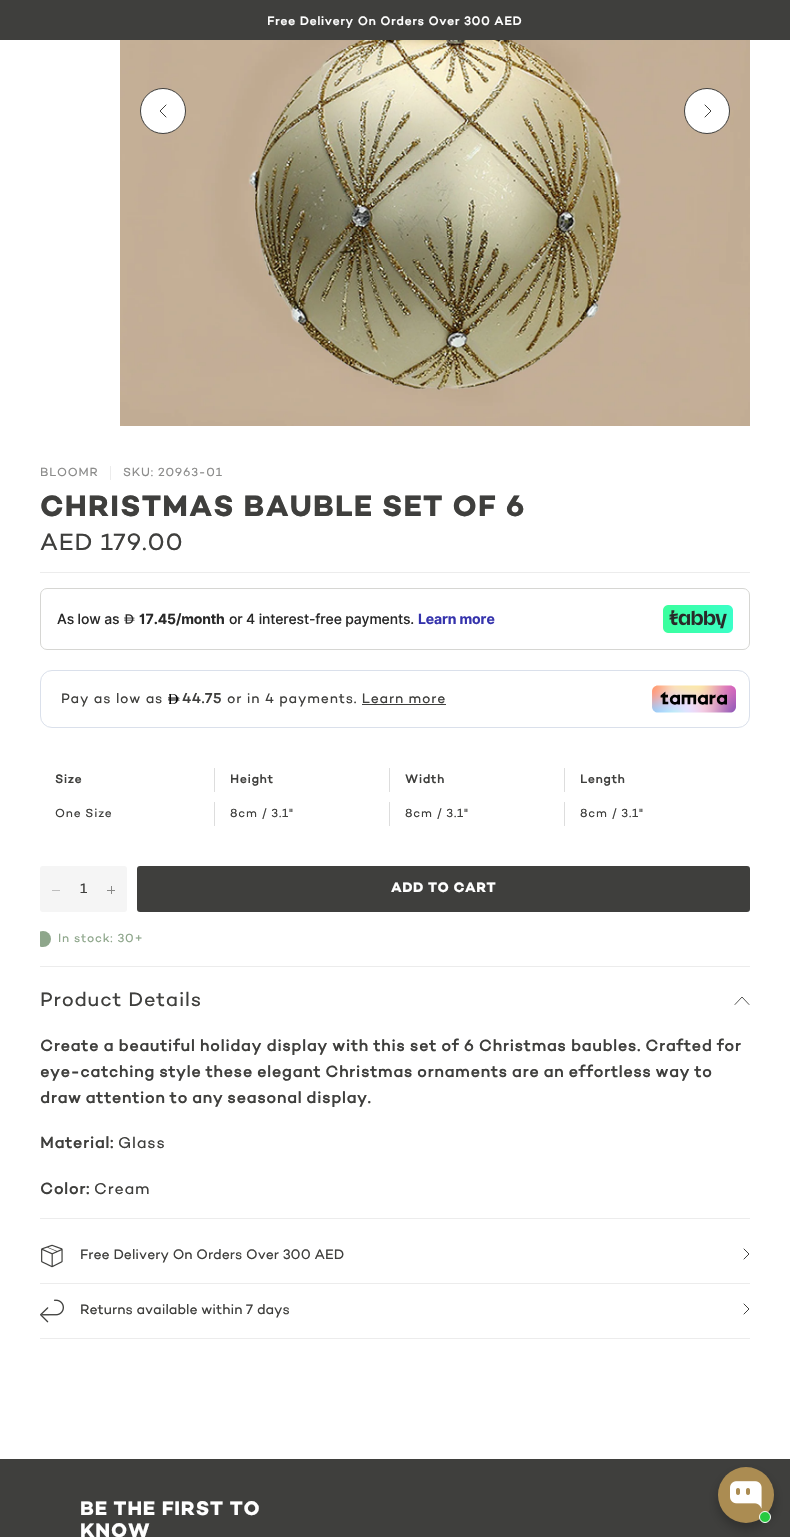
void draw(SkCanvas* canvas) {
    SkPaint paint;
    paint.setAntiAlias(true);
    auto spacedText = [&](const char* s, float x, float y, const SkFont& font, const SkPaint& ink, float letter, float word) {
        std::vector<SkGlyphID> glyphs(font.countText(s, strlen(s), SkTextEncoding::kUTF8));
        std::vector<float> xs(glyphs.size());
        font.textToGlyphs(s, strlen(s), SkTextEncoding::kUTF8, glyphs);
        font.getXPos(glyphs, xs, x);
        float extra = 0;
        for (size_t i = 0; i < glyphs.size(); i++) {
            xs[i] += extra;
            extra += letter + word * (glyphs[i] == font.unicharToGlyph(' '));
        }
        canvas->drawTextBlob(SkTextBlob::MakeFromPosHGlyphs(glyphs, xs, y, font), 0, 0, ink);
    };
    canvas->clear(0xFFFFFFFF);
    paint.setColor(0xFF3F3F3D);
    canvas->drawRect(SkRect::MakeXYWH(0, 0, 790, 40), paint);
    SkFont font1(fontMgr->matchFamilyStyle("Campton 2", SkFontStyle::Bold()), 12);
    font1.setSubpixel(true);
    paint.setColor(0xFFFFFFFF);
    spacedText("Free Delivery On Orders Over 300 AED", 267, 25, font1, paint, 0.8f, 0);
    canvas->drawImageRect(SkImages::DeferredFromEncodedData(SkData::MakeFromFileName("img1.png")), SkRect::MakeXYWH(120, 40, 630, 386), SkSamplingOptions());
    canvas->drawCircle(163, 111, 22.5f, paint);
    paint.setStyle(SkPaint::kStroke_Style);
    paint.setStrokeWidth(1);
    paint.setColor(0xFF3F3F3D);
    canvas->drawCircle(163, 111, 22.5f, paint);
    paint.setStrokeCap(SkPaint::kRound_Cap);
    paint.setStrokeJoin(SkPaint::kRound_Join);
    canvas->drawPath(SkPathBuilder().moveTo(166, 117).lineTo(160, 111).lineTo(166, 105).detach(), paint);
    paint.setStyle(SkPaint::kFill_Style);
    paint.setColor(0xFFFFFFFF);
    canvas->drawCircle(707, 111, 22.5f, paint);
    paint.setStyle(SkPaint::kStroke_Style);
    paint.setStrokeCap(SkPaint::kButt_Cap);
    paint.setStrokeJoin(SkPaint::kMiter_Join);
    paint.setColor(0xFF3F3F3D);
    canvas->drawCircle(707, 111, 22.5f, paint);
    paint.setStrokeCap(SkPaint::kRound_Cap);
    paint.setStrokeJoin(SkPaint::kRound_Join);
    canvas->drawPath(SkPathBuilder().moveTo(705, 117).lineTo(711, 111).lineTo(705, 105).detach(), paint);
    paint.setStyle(SkPaint::kFill_Style);
    paint.setColor(0xFFECECEC);
    canvas->drawRect(SkRect::MakeXYWH(110, 466, 1, 14), paint);
    SkFont font2(fontMgr->matchFamilyStyle("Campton", SkFontStyle::Normal()), 12);
    font2.setSubpixel(true);
    paint.setColor(0xFF8C8C8B);
    spacedText("BLOOMR", 40, 476, font2, paint, 0.8f, 0);
    spacedText("SKU: 20963-01", 123, 476, font2, paint, 0.8f, 0);
    paint.setColor(0xFFECECEC);
    canvas->drawRect(SkRect::MakeXYWH(40, 572, 710, 1), paint);
    SkFont font3(fontMgr->matchFamilyStyle("Campton", SkFontStyle::Bold()), 30);
    font3.setSubpixel(true);
    paint.setColor(0xFF3F3F3D);
    spacedText("CHRISTMAS BAUBLE SET OF 6", 40, 516, font3, paint, 1.2f, 0);
    SkFont font4(fontMgr->matchFamilyStyle("Campton", SkFontStyle::Normal()), 24);
    font4.setSubpixel(true);
    spacedText("AED 179.00", 40, 550, font4, paint, 0.8f, 0);
    paint.setStyle(SkPaint::kStroke_Style);
    paint.setStrokeCap(SkPaint::kButt_Cap);
    paint.setStrokeJoin(SkPaint::kMiter_Join);
    paint.setColor(0xFFD6D6D3);
    canvas->drawRoundRect(SkRect::MakeXYWH(40.5f, 588.5f, 709, 61), 6.5f, 6.5f, paint);
    SkFont font5(fontMgr->matchFamilyStyle("Inter", SkFontStyle(500, SkFontStyle::kNormal_Width, SkFontStyle::kUpright_Slant)), 14);
    font5.setSubpixel(true);
    paint.setStyle(SkPaint::kFill_Style);
    paint.setColor(0xFF292929);
    spacedText("As low as", 57, 624, font5, paint, -0.15f, 0);
    canvas->drawImageRect(SkImages::DeferredFromEncodedData(SkData::MakeFromFileName("img2.png")), SkRect::MakeXYWH(124, 614, 11, 10), SkSamplingOptions());
    SkFont font6(fontMgr->matchFamilyStyle("Inter", SkFontStyle::Bold()), 14);
    font6.setSubpixel(true);
    spacedText("17.45/month", 139, 624, font6, paint, -0.15f, 0);
    spacedText("or 4 interest-free payments.", 229, 624, font5, paint, -0.15f, 0);
    paint.setColor(0xFF3533AC);
    spacedText("Learn more", 418, 624, font6, paint, -0.15f, 0);
    canvas->drawImageRect(SkImages::DeferredFromEncodedData(SkData::MakeFromFileName("img3.png")), SkRect::MakeXYWH(663, 605, 70, 28), SkSamplingOptions());
    paint.setStyle(SkPaint::kStroke_Style);
    paint.setColor(0xFFDAE0EB);
    canvas->drawRoundRect(SkRect::MakeXYWH(40.5f, 670.5f, 709, 57), 11.5f, 11.5f, paint);
    SkFont font7(fontMgr->matchFamilyStyle("Campton", SkFontStyle::Normal()), 14);
    font7.setSubpixel(true);
    paint.setStyle(SkPaint::kFill_Style);
    paint.setColor(0xFF3F3F3D);
    spacedText("Pay as low as", 61, 703, font7, paint, 0.8f, 0);
    canvas->drawImageRect(SkImages::DeferredFromEncodedData(SkData::MakeFromFileName("img4.png")), SkRect::MakeXYWH(168, 694, 12, 10), SkSamplingOptions());
    SkFont font8(fontMgr->matchFamilyStyle("Campton 2", SkFontStyle::Bold()), 14);
    font8.setSubpixel(true);
    spacedText("44.75", 182, 703, font8, paint, 0.8f, 0);
    spacedText("or in 4 payments. Learn more", 227, 703, font7, paint, 0.8f, 0);
    canvas->drawRect(SkRect::MakeXYWH(362, 704, 84, 1), paint);
    canvas->drawImageRect(SkImages::DeferredFromEncodedData(SkData::MakeFromFileName("img5.png")), SkRect::MakeXYWH(652, 685, 84, 28), SkSamplingOptions());
    paint.setColor(0xFFDDDDDD);
    canvas->drawRect(SkRect::MakeXYWH(214, 768, 1, 24), paint);
    paint.setColor(0xFF3F3F3D);
    spacedText("Size", 55, 783, font1, paint, 0.8f, 0);
    paint.setColor(0xFFDDDDDD);
    canvas->drawRect(SkRect::MakeXYWH(389, 768, 1, 24), paint);
    paint.setColor(0xFF3F3F3D);
    spacedText("Height", 230, 783, font1, paint, 0.8f, 0);
    paint.setColor(0xFFDDDDDD);
    canvas->drawRect(SkRect::MakeXYWH(564, 768, 1, 24), paint);
    paint.setColor(0xFF3F3F3D);
    spacedText("Width", 405, 783, font1, paint, 0.8f, 0);
    spacedText("Length", 580, 783, font1, paint, 0.8f, 0);
    paint.setColor(0xFFDDDDDD);
    canvas->drawRect(SkRect::MakeXYWH(214, 802, 1, 24), paint);
    paint.setColor(0xFF3F3F3D);
    spacedText("One Size", 55, 817, font2, paint, 0.8f, 0);
    paint.setColor(0xFFDDDDDD);
    canvas->drawRect(SkRect::MakeXYWH(389, 802, 1, 24), paint);
    paint.setColor(0xFF3F3F3D);
    spacedText("8cm / 3.1\"", 230, 817, font2, paint, 0.8f, 0);
    paint.setColor(0xFFDDDDDD);
    canvas->drawRect(SkRect::MakeXYWH(564, 802, 1, 24), paint);
    paint.setColor(0xFF3F3F3D);
    spacedText("8cm / 3.1\"", 405, 817, font2, paint, 0.8f, 0);
    spacedText("8cm / 3.1\"", 580, 817, font2, paint, 0.8f, 0);
    paint.setColor(0xFFF5F5F5);
    canvas->drawRoundRect(SkRect::MakeXYWH(40, 866, 87, 46), 3, 3, paint);
    paint.setColor(0xFFBEBEBE);
    canvas->drawRect(SkRect::MakeXYWH(52, 890, 8, 1), paint);
    paint.setColor(0xFF3F3F3D);
    canvas->drawString("1", 80, 893, font7, paint);
    paint.setColor(0xFF888887);
    canvas->drawRect(SkRect::MakeXYWH(111, 886, 1, 8), paint);
    canvas->drawRect(SkRect::MakeXYWH(107, 890, 8, 1), paint);
    paint.setColor(0xFF3F3F3D);
    canvas->drawRoundRect(SkRect::MakeXYWH(137, 866, 613, 46), 3, 3, paint);
    SkFont font9(fontMgr->matchFamilyStyle("Campton", SkFontStyle::Bold()), 14);
    font9.setSubpixel(true);
    paint.setColor(0xFFFFFFFF);
    spacedText("ADD TO CART", 391, 892, font9, paint, 0.5f, 0);
    canvas->save();
    canvas->clipRect(SkRect::MakeXYWH(40, 466, 710, 893));
    paint.setColor(0xFF8EA68B);
    canvas->drawCircle(43, 939, 8, paint);
    canvas->restore();
    spacedText("In stock: 30+", 58, 942, font2, paint, 0.8f, 0);
    paint.setColor(0xFFECECEC);
    canvas->drawRect(SkRect::MakeXYWH(40, 966, 710, 1), paint);
    canvas->drawRect(SkRect::MakeXYWH(40, 1218, 710, 1), paint);
    SkFont font10(fontMgr->matchFamilyStyle("Campton", SkFontStyle::Normal()), 20);
    font10.setSubpixel(true);
    paint.setColor(0xFF3F3F3D);
    spacedText("Product Details", 40, 1006, font10, paint, 0.8f, 0);
    paint.setStyle(SkPaint::kStroke_Style);
    paint.setStrokeWidth(0.9f);
    paint.setStrokeCap(SkPaint::kRound_Cap);
    paint.setStrokeJoin(SkPaint::kRound_Join);
    canvas->drawPath(SkPathBuilder().moveTo(735, 1004.5f).lineTo(742, 997).lineTo(749, 1004.5f).detach(), paint);
    SkFont font11(fontMgr->matchFamilyStyle("Campton 2", SkFontStyle::Bold()), 16);
    font11.setSubpixel(true);
    paint.setStyle(SkPaint::kFill_Style);
    spacedText("Create a beautiful holiday display with this set of 6 Christmas baubles. Crafted for", 40, 1051, font11, paint, 0.8f, -0.6f);
    spacedText("eye-catching style these elegant Christmas ornaments are an effortless way to", 40, 1077, font11, paint, 0.8f, -0.9f);
    spacedText("draw attention to any seasonal display.", 40, 1103, font11, paint, 0.8f, -1);
    spacedText("Material:", 40, 1148, font11, paint, 0.8f, 0);
    SkFont font12(fontMgr->matchFamilyStyle("Campton", SkFontStyle::Normal()), 16);
    font12.setSubpixel(true);
    spacedText("Glass", 118, 1148, font12, paint, 0.8f, 0);
    spacedText("Color:", 40, 1194, font11, paint, 0.8f, 0);
    spacedText("Cream", 94, 1194, font12, paint, 0.8f, 0);
    canvas->drawImageRect(SkImages::DeferredFromEncodedData(SkData::MakeFromFileName("img6.png")), SkRect::MakeXYWH(41, 1244, 22, 24), SkSamplingOptions());
    canvas->drawString("Free Delivery On Orders Over 300 AED", 80, 1259, font7, paint);
    paint.setStyle(SkPaint::kStroke_Style);
    paint.setStrokeWidth(1);
    canvas->drawPath(SkPathBuilder().moveTo(744, 1249).lineTo(749, 1254).lineTo(744, 1259).detach(), paint);
    paint.setStyle(SkPaint::kFill_Style);
    paint.setColor(0xFFECECEC);
    canvas->drawRect(SkRect::MakeXYWH(40, 1283, 710, 1), paint);
    canvas->drawRect(SkRect::MakeXYWH(40, 1338, 710, 1), paint);
    canvas->drawImageRect(SkImages::DeferredFromEncodedData(SkData::MakeFromFileName("img7.png")), SkRect::MakeXYWH(40, 1299, 24, 24), SkSamplingOptions());
    paint.setColor(0xFF3F3F3D);
    canvas->drawString("Returns available within 7 days", 80, 1314, font7, paint);
    paint.setStyle(SkPaint::kStroke_Style);
    canvas->drawPath(SkPathBuilder().moveTo(744, 1304).lineTo(749, 1309).lineTo(744, 1314).detach(), paint);
    paint.setStyle(SkPaint::kFill_Style);
    canvas->drawRect(SkRect::MakeXYWH(0, 1459, 790, 78), paint);
    SkFont font13(fontMgr->matchFamilyStyle("Campton", SkFontStyle::Bold()), 20);
    font13.setSubpixel(true);
    paint.setColor(0xFFFFFFFF);
    spacedText("BE THE FIRST TO", 80, 1515, font13, paint, 0.8f, 0);
    spacedText("KNOW", 80, 1537, font13, paint, 0.8f, 0);
    paint.setColor(0x40000000);
    paint.setMaskFilter(SkMaskFilter::MakeBlur(kNormal_SkBlurStyle, 6));
    canvas->drawRoundRect(SkRect::MakeXYWH(718, 1473, 56, 56), 28, 28, paint);
    paint.setMaskFilter(nullptr);
    paint.setColor(0xFFAB8C52);
    canvas->drawCircle(746, 1495, 28, paint);
    canvas->drawImageRect(SkImages::DeferredFromEncodedData(SkData::MakeFromFileName("img8.png")), SkRect::MakeXYWH(730, 1481, 32, 28), SkSamplingOptions());
    paint.setColor(0xFF27CA40);
    canvas->drawCircle(765, 1517, 5.5f, paint);
    paint.setStyle(SkPaint::kStroke_Style);
    paint.setStrokeCap(SkPaint::kButt_Cap);
    paint.setStrokeJoin(SkPaint::kMiter_Join);
    paint.setColor(0xFFFFFFFF);
    canvas->drawCircle(765, 1517, 5.5f, paint);
}
